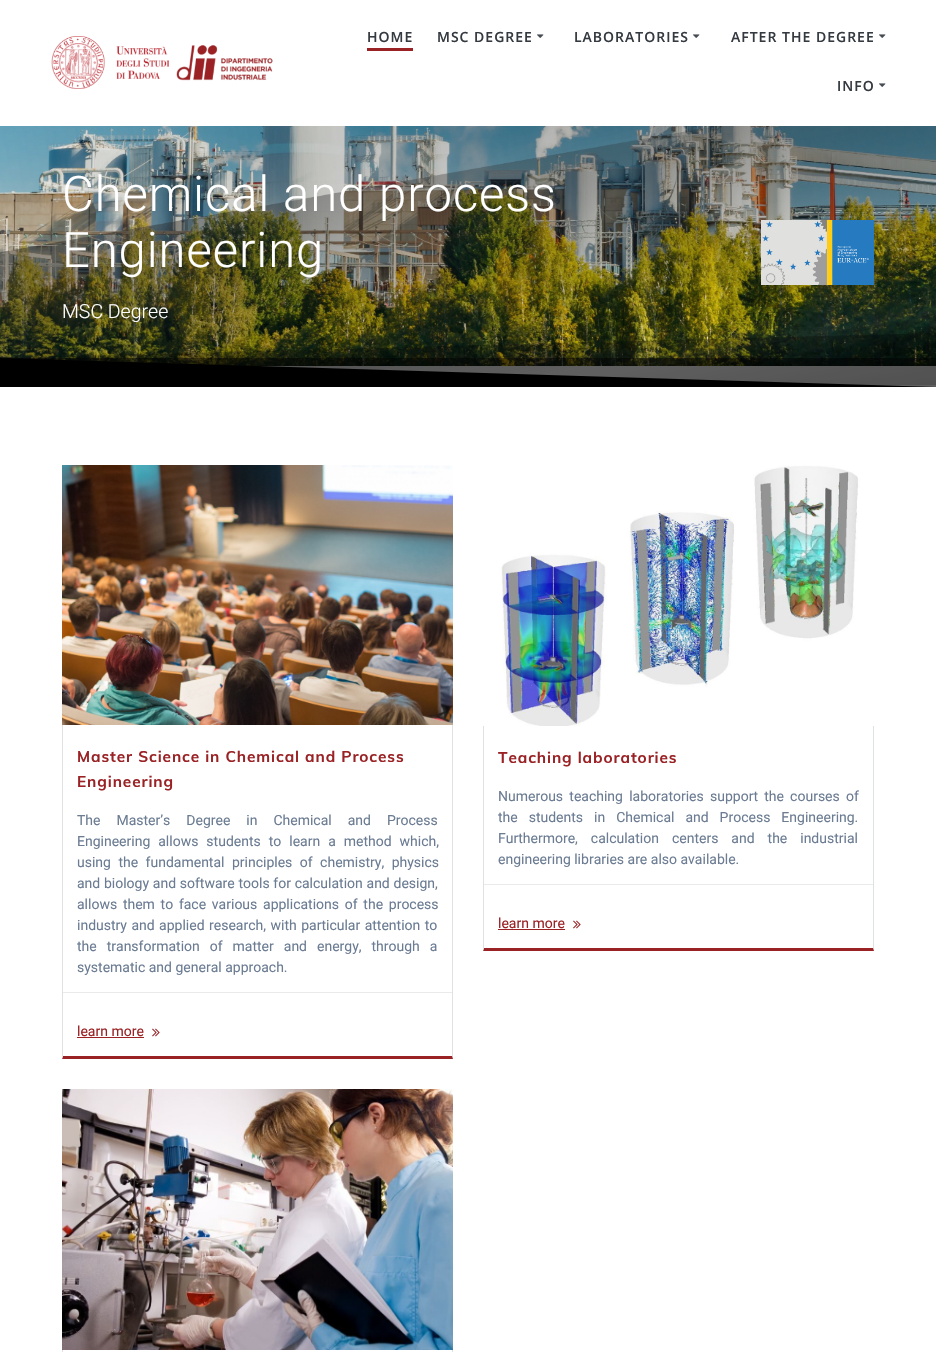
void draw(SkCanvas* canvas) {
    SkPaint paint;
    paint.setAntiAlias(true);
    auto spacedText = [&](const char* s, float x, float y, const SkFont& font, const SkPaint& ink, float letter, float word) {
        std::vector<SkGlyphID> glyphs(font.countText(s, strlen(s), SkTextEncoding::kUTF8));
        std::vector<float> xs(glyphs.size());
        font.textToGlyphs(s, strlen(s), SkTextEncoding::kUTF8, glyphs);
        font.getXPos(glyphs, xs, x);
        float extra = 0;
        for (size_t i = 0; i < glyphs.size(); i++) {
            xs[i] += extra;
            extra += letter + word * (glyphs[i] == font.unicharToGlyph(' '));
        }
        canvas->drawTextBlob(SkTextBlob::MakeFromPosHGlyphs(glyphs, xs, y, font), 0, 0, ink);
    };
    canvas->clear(0xFFFFFFFF);
    canvas->drawImageRect(SkImages::DeferredFromEncodedData(SkData::MakeFromFileName("img1.png")), SkRect::MakeXYWH(51, 36, 222, 53), SkSamplingOptions());
    paint.setColor(0xFF9A2225);
    canvas->drawRect(SkRect::MakeXYWH(367, 48, 46, 3), paint);
    SkFont font1(fontMgr->matchFamilyStyle("Open Sans", SkFontStyle(600, SkFontStyle::kNormal_Width, SkFontStyle::kUpright_Slant)), 14);
    font1.setSubpixel(true);
    paint.setColor(0xFF343A40);
    spacedText("HOME", 367, 42, font1, paint, 1, 0);
    spacedText("MSC DEGREE", 437, 42, font1, paint, 1, 0);
    canvas->drawImageRect(SkImages::DeferredFromEncodedData(SkData::MakeFromFileName("img2.png")), SkRect::MakeXYWH(537, 34, 7, 4), SkSamplingOptions());
    spacedText("LABORATORIES", 574, 42, font1, paint, 1, 0);
    canvas->drawImageRect(SkImages::DeferredFromEncodedData(SkData::MakeFromFileName("img2.png")), SkRect::MakeXYWH(693, 34, 7, 4), SkSamplingOptions());
    spacedText("AFTER THE DEGREE", 731, 42, font1, paint, 1, 0);
    canvas->drawImageRect(SkImages::DeferredFromEncodedData(SkData::MakeFromFileName("img2.png")), SkRect::MakeXYWH(879, 34, 7, 4), SkSamplingOptions());
    spacedText("INFO", 837, 91, font1, paint, 1, 0);
    canvas->drawImageRect(SkImages::DeferredFromEncodedData(SkData::MakeFromFileName("img2.png")), SkRect::MakeXYWH(879, 83, 7, 4), SkSamplingOptions());
    canvas->drawImageRect(SkImages::DeferredFromEncodedData(SkData::MakeFromFileName("img3.png")), SkRect::MakeXYWH(0, 126, 936, 240), SkSamplingOptions());
    canvas->drawImageRect(SkImages::DeferredFromEncodedData(SkData::MakeFromFileName("img4.png")), SkRect::MakeXYWH(0, 126, 936, 259), SkSamplingOptions());
    SkFont font2(fontMgr->matchFamilyStyle("Roboto", SkFontStyle(300, SkFontStyle::kNormal_Width, SkFontStyle::kUpright_Slant)), 49);
    font2.setSubpixel(true);
    paint.setColor(0xFFFFFFFF);
    spacedText("Chemical and process", 62, 211, font2, paint, 0.9f, 0);
    spacedText("Engineering", 62, 267, font2, paint, 0.9f, 0);
    SkFont font3(fontMgr->matchFamilyStyle("Roboto", SkFontStyle(300, SkFontStyle::kNormal_Width, SkFontStyle::kUpright_Slant)), 19.5f);
    font3.setSubpixel(true);
    canvas->drawString("MSC Degree", 62, 318, font3, paint);
    canvas->drawImageRect(SkImages::DeferredFromEncodedData(SkData::MakeFromFileName("img5.png")), SkRect::MakeXYWH(761, 220, 113, 65), SkSamplingOptions());
    paint.setColor(0xFF000000);
    canvas->drawPath(SkPathBuilder().moveTo(936, 387).lineTo(-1, 387).lineTo(-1, 358).close().detach(), paint);
    paint.setColor(0x80000000);
    canvas->drawRect(SkRect::MakeXYWH(5, 358, 931, 29), paint);
    paint.setColor(0x40000000);
    canvas->drawPath(SkPathBuilder().moveTo(-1, 387).lineTo(936, 387).lineTo(936, 333).lineTo(-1, 358).close().detach(), paint);
    paint.setColor(0xFFE0E1E1);
    canvas->drawPath(SkPathBuilder().moveTo(453, 465).lineTo(453, 1059).lineTo(452, 1056).lineTo(452, 466).close().detach(), paint);
    paint.setColor(0xFF9A2225);
    canvas->drawPath(SkPathBuilder().moveTo(453, 1059).lineTo(62, 1059).lineTo(63, 1056).lineTo(452, 1056).close().detach(), paint);
    paint.setColor(0xFFE0E1E1);
    canvas->drawPath(SkPathBuilder().moveTo(62, 1059).lineTo(62, 465).lineTo(63, 466).lineTo(63, 1056).close().detach(), paint);
    canvas->drawImageRect(SkImages::DeferredFromEncodedData(SkData::MakeFromFileName("img6.png")), SkRect::MakeXYWH(62, 465, 391, 260), SkSamplingOptions());
    SkFont font4(fontMgr->matchFamilyStyle("Muli", SkFontStyle::Bold()), 15.4f);
    font4.setSubpixel(true);
    paint.setColor(0xFF9A2225);
    spacedText("Master Science in Chemical and Process", 77, 762, font4, paint, 0.9f, 0);
    spacedText("Engineering", 77, 787, font4, paint, 0.9f, 0);
    SkFont font5(fontMgr->matchFamilyStyle("Roboto", SkFontStyle::Normal()), 14);
    font5.setSubpixel(true);
    paint.setColor(0xFF6B7C93);
    spacedText("The Master’s Degree in Chemical and Process", 77, 825, font5, paint, 0, 12.5f);
    spacedText("Engineering allows students to learn a method which,", 77, 846, font5, paint, 0, 4.5f);
    spacedText("using the fundamental principles of chemistry, physics", 77, 867, font5, paint, 0, 4);
    spacedText("and biology and software tools for calculation and design,", 77, 888, font5, paint, 0, 0.25f);
    spacedText("allows them to face various applications of the process", 77, 909, font5, paint, 0, 2.25f);
    spacedText("industry and applied research, with particular attention to", 77, 930, font5, paint, 0, 1);
    spacedText("the transformation of matter and energy, through a", 77, 951, font5, paint, 0, 6.5f);
    canvas->drawString("systematic and general approach.", 77, 972, font5, paint);
    paint.setColor(0xFFEAEAEA);
    canvas->drawRect(SkRect::MakeXYWH(63, 992, 389, 1), paint);
    paint.setColor(0xFF9A2225);
    canvas->drawString("learn more", 77, 1036, font5, paint);
    canvas->drawRect(SkRect::MakeXYWH(77, 1037, 67, 1), paint);
    canvas->drawImageRect(SkImages::DeferredFromEncodedData(SkData::MakeFromFileName("img7.png")), SkRect::MakeXYWH(152, 1028, 8, 9), SkSamplingOptions());
    paint.setColor(0xFFE0E1E1);
    canvas->drawPath(SkPathBuilder().moveTo(874, 465).lineTo(874, 951).lineTo(873, 948).lineTo(873, 466).close().detach(), paint);
    paint.setColor(0xFF9A2225);
    canvas->drawPath(SkPathBuilder().moveTo(874, 951).lineTo(483, 951).lineTo(484, 948).lineTo(873, 948).close().detach(), paint);
    paint.setColor(0xFFE0E1E1);
    canvas->drawPath(SkPathBuilder().moveTo(483, 951).lineTo(483, 465).lineTo(484, 466).lineTo(484, 948).close().detach(), paint);
    canvas->drawImageRect(SkImages::DeferredFromEncodedData(SkData::MakeFromFileName("img8.png")), SkRect::MakeXYWH(483, 465, 391, 261), SkSamplingOptions());
    paint.setColor(0xFF9A2225);
    spacedText("Teaching laboratories", 498, 763, font4, paint, 0.9f, 0);
    paint.setColor(0xFF6B7C93);
    spacedText("Numerous teaching laboratories support the courses of", 498, 801, font5, paint, 0, 2.75f);
    spacedText("the students in Chemical and Process Engineering.", 498, 822, font5, paint, 0, 7.5f);
    spacedText("Furthermore, calculation centers and the industrial", 498, 843, font5, paint, 0, 9.5f);
    canvas->drawString("engineering libraries are also available.", 498, 864, font5, paint);
    paint.setColor(0xFFEAEAEA);
    canvas->drawRect(SkRect::MakeXYWH(484, 884, 389, 1), paint);
    paint.setColor(0xFF9A2225);
    canvas->drawString("learn more", 498, 928, font5, paint);
    canvas->drawRect(SkRect::MakeXYWH(498, 929, 67, 1), paint);
    canvas->drawImageRect(SkImages::DeferredFromEncodedData(SkData::MakeFromFileName("img7.png")), SkRect::MakeXYWH(573, 920, 8, 9), SkSamplingOptions());
    paint.setColor(0xFFE0E1E1);
    canvas->drawPath(SkPathBuilder().moveTo(453, 1089).lineTo(453, 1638).lineTo(452, 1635).lineTo(452, 1090).close().detach(), paint);
    canvas->drawPath(SkPathBuilder().moveTo(62, 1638).lineTo(62, 1089).lineTo(63, 1090).lineTo(63, 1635).close().detach(), paint);
    canvas->drawImageRect(SkImages::DeferredFromEncodedData(SkData::MakeFromFileName("img9.png")), SkRect::MakeXYWH(62, 1089, 391, 261), SkSamplingOptions());
}
